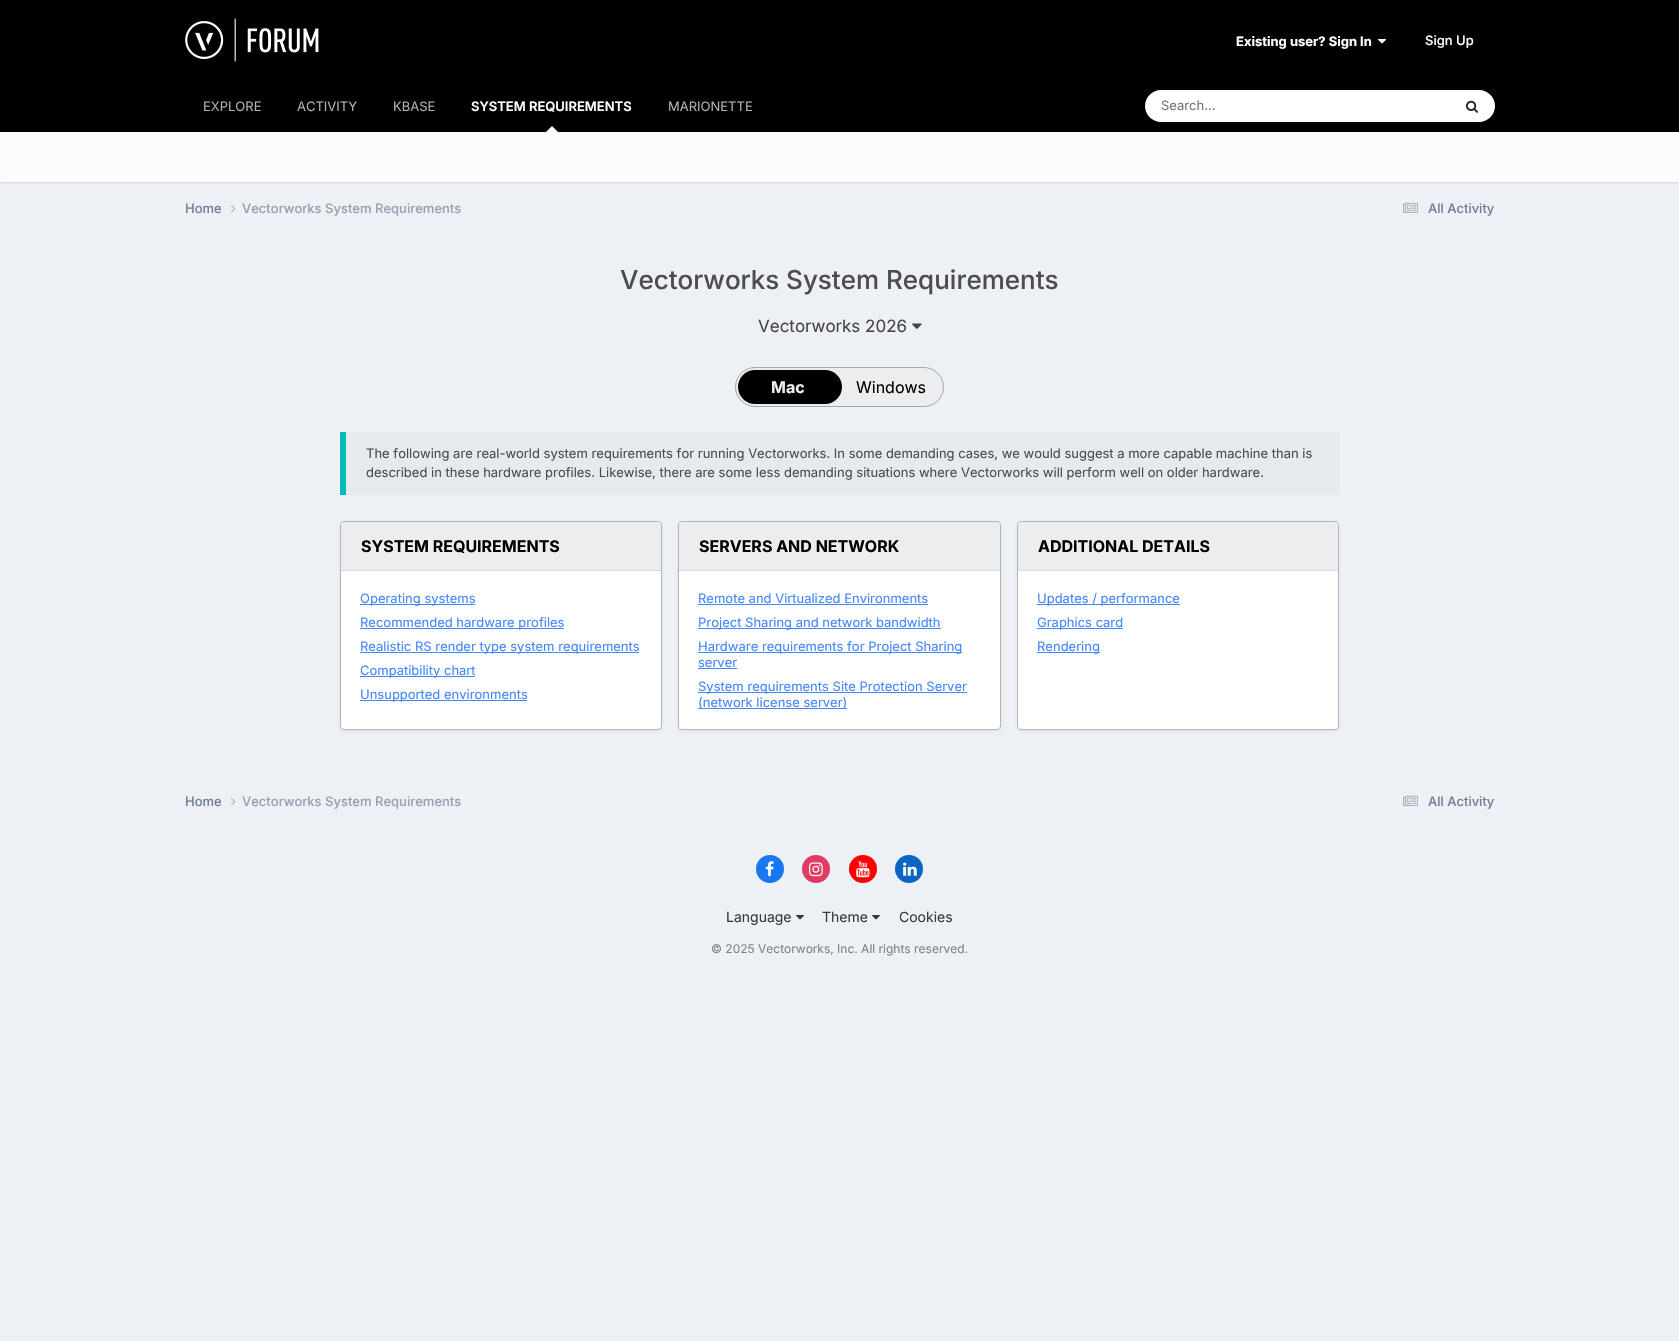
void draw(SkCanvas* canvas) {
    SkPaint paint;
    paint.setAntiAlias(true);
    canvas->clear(0xFFEDF0F4);
    paint.setColor(0xFF000000);
    canvas->drawRect(SkRect::MakeXYWH(0, 0, 1679, 132), paint);
    canvas->drawImageRect(SkImages::DeferredFromEncodedData(SkData::MakeFromFileName("img1.png")), SkRect::MakeXYWH(185, 18, 134, 44), SkSamplingOptions());
    SkFont font1(fontMgr->matchFamilyStyle("Inter", SkFontStyle::Bold()), 13);
    font1.setSubpixel(true);
    paint.setColor(0xFFFFFFFF);
    canvas->drawString("Existing user? Sign In", 1236, 46, font1, paint);
    canvas->drawImageRect(SkImages::DeferredFromEncodedData(SkData::MakeFromFileName("img2.png")), SkRect::MakeXYWH(1378, 39, 8, 5), SkSamplingOptions());
    SkFont font2(fontMgr->matchFamilyStyle("Inter", SkFontStyle(500, SkFontStyle::kNormal_Width, SkFontStyle::kUpright_Slant)), 13);
    font2.setSubpixel(true);
    canvas->drawString("Sign Up", 1425, 45, font2, paint);
    SkFont font3(fontMgr->matchFamilyStyle("Inter", SkFontStyle::Normal()), 13);
    font3.setSubpixel(true);
    paint.setColor(0xFFB0B0B0);
    canvas->drawString("EXPLORE", 203, 111, font3, paint);
    canvas->drawString("ACTIVITY", 297, 111, font3, paint);
    canvas->drawString("KBASE", 393, 111, font3, paint);
    SkFont font4(fontMgr->matchFamilyStyle("Inter", SkFontStyle(600, SkFontStyle::kNormal_Width, SkFontStyle::kUpright_Slant)), 13);
    font4.setSubpixel(true);
    paint.setColor(0xFFFFFFFF);
    canvas->drawString("SYSTEM REQUIREMENTS", 471, 111, font4, paint);
    paint.setColor(0x1A000000);
    paint.setMaskFilter(SkMaskFilter::MakeBlur(kNormal_SkBlurStyle, 1));
    canvas->drawRect(SkRect::MakeXYWH(0, 133, 1679, 50), paint);
    paint.setMaskFilter(nullptr);
    paint.setColor(0xFFFCFCFC);
    canvas->drawPath(SkPathBuilder().moveTo(558, 132).lineTo(546, 132).lineTo(552, 126).close().detach(), paint);
    paint.setColor(0xFFB0B0B0);
    canvas->drawString("MARIONETTE", 668, 111, font3, paint);
    paint.setColor(0xFFFFFFFF);
    canvas->drawRoundRect(SkRect::MakeXYWH(1145, 90, 350, 32), 16, 16, paint);
    paint.setColor(0xFF757575);
    canvas->drawString("Search...", 1161, 110, font3, paint);
    canvas->drawImageRect(SkImages::DeferredFromEncodedData(SkData::MakeFromFileName("img3.png")), SkRect::MakeXYWH(1466, 100, 12, 13), SkSamplingOptions());
    paint.setColor(0xFFFCFCFC);
    canvas->drawRect(SkRect::MakeXYWH(0, 132, 1679, 50), paint);
    paint.setColor(0xFF718096);
    canvas->drawString("Home", 185, 213, font2, paint);
    canvas->drawImageRect(SkImages::DeferredFromEncodedData(SkData::MakeFromFileName("img4.png")), SkRect::MakeXYWH(231, 205, 5, 8), SkSamplingOptions());
    paint.setColor(0xFF96A2B2);
    canvas->drawString("Vectorworks System Requirements", 242, 213, font2, paint);
    canvas->drawImageRect(SkImages::DeferredFromEncodedData(SkData::MakeFromFileName("img5.png")), SkRect::MakeXYWH(1403, 202, 15, 11), SkSamplingOptions());
    paint.setColor(0xFF718096);
    canvas->drawString("All Activity", 1428, 213, font2, paint);
    SkFont font5(fontMgr->matchFamilyStyle("Inter", SkFontStyle(500, SkFontStyle::kNormal_Width, SkFontStyle::kUpright_Slant)), 26);
    font5.setSubpixel(true);
    paint.setColor(0xFF4D4D4D);
    canvas->drawString("Vectorworks System Requirements", 620, 289, font5, paint);
    SkFont font6(fontMgr->matchFamilyStyle("Inter", SkFontStyle::Normal()), 17);
    font6.setSubpixel(true);
    paint.setColor(0xFF454545);
    canvas->drawString("Vectorworks 2026", 758, 332, font6, paint);
    canvas->drawImageRect(SkImages::DeferredFromEncodedData(SkData::MakeFromFileName("img6.png")), SkRect::MakeXYWH(912, 323, 10, 6), SkSamplingOptions());
    paint.setColor(0xFFEBEDEE);
    canvas->drawRoundRect(SkRect::MakeXYWH(736, 368, 207, 38), 19, 19, paint);
    paint.setColor(0xFF000000);
    canvas->drawRoundRect(SkRect::MakeXYWH(738, 370, 104, 34), 17, 17, paint);
    paint.setStyle(SkPaint::kStroke_Style);
    paint.setStrokeWidth(1);
    paint.setColor(0x4D000000);
    canvas->drawRoundRect(SkRect::MakeXYWH(735.5f, 367.5f, 208, 39), 19.5f, 19.5f, paint);
    SkFont font7(fontMgr->matchFamilyStyle("Inter", SkFontStyle::Bold()), 16);
    font7.setSubpixel(true);
    paint.setStyle(SkPaint::kFill_Style);
    paint.setColor(0xFFEBEDEE);
    canvas->drawString("Mac", 771, 393, font7, paint);
    SkFont font8(fontMgr->matchFamilyStyle("Inter", SkFontStyle::Normal()), 16);
    font8.setSubpixel(true);
    paint.setColor(0xFF000000);
    canvas->drawString("Windows", 856, 393, font8, paint);
    paint.setColor(0xFFE6E9ED);
    canvas->drawRect(SkRect::MakeXYWH(346, 432, 994, 63), paint);
    paint.setColor(0xFF01BCB4);
    canvas->drawRect(SkRect::MakeXYWH(340, 432, 6, 63), paint);
    paint.setColor(0xFF4D4D4D);
    canvas->drawString("The following are real-world system requirements for running Vectorworks. In some demanding cases, we would suggest a more capable machine than is", 366, 458, font3, paint);
    canvas->drawString("described in these hardware profiles. Likewise, there are some less demanding situations where Vectorworks will perform well on older hardware.", 366, 477, font3, paint);
    paint.setColor(0x1A3B3B3B);
    paint.setMaskFilter(SkMaskFilter::MakeBlur(kNormal_SkBlurStyle, 2));
    canvas->drawRoundRect(SkRect::MakeXYWH(341, 524, 320, 207), 3, 3, paint);
    paint.setMaskFilter(nullptr);
    paint.setColor(0xFFFFFFFF);
    canvas->drawRoundRect(SkRect::MakeXYWH(340.5f, 521.5f, 321, 208), 3.5f, 3.5f, paint);
    paint.setStyle(SkPaint::kStroke_Style);
    paint.setColor(0xFFB4B4B4);
    canvas->drawRoundRect(SkRect::MakeXYWH(340.5f, 521.5f, 321, 208), 3.5f, 3.5f, paint);
    paint.setStyle(SkPaint::kFill_Style);
    paint.setColor(0xFFEBEDEE);
    canvas->drawPath(SkPathBuilder().moveTo(345, 522).lineTo(657, 522).cubicTo(659, 522, 661, 524, 661, 526).lineTo(661, 571).lineTo(341, 571).lineTo(341, 526).cubicTo(341, 524, 343, 522, 345, 522).close().detach(), paint);
    paint.setColor(0xFFD9DDE1);
    canvas->drawRect(SkRect::MakeXYWH(341, 570, 320, 1), paint);
    paint.setColor(0xFF000000);
    canvas->drawString("SYSTEM REQUIREMENTS", 361, 552, font7, paint);
    paint.setColor(0xFF4488FF);
    canvas->drawRect(SkRect::MakeXYWH(360, 604, 115, 1), paint);
    canvas->drawString("Operating systems", 360, 603, font3, paint);
    canvas->drawRect(SkRect::MakeXYWH(360, 628, 204, 1), paint);
    canvas->drawString("Recommended hardware profiles", 360, 627, font3, paint);
    canvas->drawRect(SkRect::MakeXYWH(360, 652, 279, 1), paint);
    canvas->drawString("Realistic RS render type system requirements", 360, 651, font3, paint);
    canvas->drawRect(SkRect::MakeXYWH(360, 676, 115, 1), paint);
    canvas->drawString("Compatibility chart", 360, 675, font3, paint);
    canvas->drawRect(SkRect::MakeXYWH(360, 700, 167, 1), paint);
    canvas->drawString("Unsupported environments", 360, 699, font3, paint);
    paint.setColor(0x1A3B3B3B);
    paint.setMaskFilter(SkMaskFilter::MakeBlur(kNormal_SkBlurStyle, 2));
    canvas->drawRoundRect(SkRect::MakeXYWH(679, 524, 321, 207), 3, 3, paint);
    paint.setMaskFilter(nullptr);
    paint.setColor(0xFFFFFFFF);
    canvas->drawRoundRect(SkRect::MakeXYWH(678.5f, 521.5f, 322, 208), 3.5f, 3.5f, paint);
    paint.setStyle(SkPaint::kStroke_Style);
    paint.setColor(0xFFB4B4B4);
    canvas->drawRoundRect(SkRect::MakeXYWH(678.5f, 521.5f, 322, 208), 3.5f, 3.5f, paint);
    paint.setStyle(SkPaint::kFill_Style);
    paint.setColor(0xFFEBEDEE);
    canvas->drawPath(SkPathBuilder().moveTo(683, 522).lineTo(996, 522).cubicTo(998, 522, 1000, 524, 1000, 526).lineTo(1000, 571).lineTo(679, 571).lineTo(679, 526).cubicTo(679, 524, 681, 522, 683, 522).close().detach(), paint);
    paint.setColor(0xFFD9DDE1);
    canvas->drawRect(SkRect::MakeXYWH(679, 570, 321, 1), paint);
    paint.setColor(0xFF000000);
    canvas->drawString("SERVERS AND NETWORK", 699, 552, font7, paint);
    paint.setColor(0xFF4488FF);
    canvas->drawString("Remote and Virtualized Environments", 698, 603, font3, paint);
    canvas->drawRect(SkRect::MakeXYWH(698, 604, 230, 1), paint);
    canvas->drawRect(SkRect::MakeXYWH(698, 628, 243, 1), paint);
    canvas->drawString("Project Sharing and network bandwidth", 698, 627, font3, paint);
    canvas->drawRect(SkRect::MakeXYWH(698, 652, 264, 1), paint);
    canvas->drawString("Hardware requirements for Project Sharing", 698, 651, font3, paint);
    canvas->drawString("server", 698, 667, font3, paint);
    canvas->drawRect(SkRect::MakeXYWH(698, 668, 39, 1), paint);
    canvas->drawRect(SkRect::MakeXYWH(698, 692, 269, 1), paint);
    canvas->drawString("System requirements Site Protection Server", 698, 691, font3, paint);
    canvas->drawRect(SkRect::MakeXYWH(698, 708, 149, 1), paint);
    canvas->drawString("(network license server)", 698, 707, font3, paint);
    paint.setColor(0x1A3B3B3B);
    paint.setMaskFilter(SkMaskFilter::MakeBlur(kNormal_SkBlurStyle, 2));
    canvas->drawRoundRect(SkRect::MakeXYWH(1018, 524, 320, 207), 3, 3, paint);
    paint.setMaskFilter(nullptr);
    paint.setColor(0xFFFFFFFF);
    canvas->drawRoundRect(SkRect::MakeXYWH(1017.5f, 521.5f, 321, 208), 3.5f, 3.5f, paint);
    paint.setStyle(SkPaint::kStroke_Style);
    paint.setColor(0xFFB4B4B4);
    canvas->drawRoundRect(SkRect::MakeXYWH(1017.5f, 521.5f, 321, 208), 3.5f, 3.5f, paint);
    paint.setStyle(SkPaint::kFill_Style);
    paint.setColor(0xFFEBEDEE);
    canvas->drawPath(SkPathBuilder().moveTo(1022, 522).lineTo(1334, 522).cubicTo(1336, 522, 1338, 524, 1338, 526).lineTo(1338, 571).lineTo(1018, 571).lineTo(1018, 526).cubicTo(1018, 524, 1020, 522, 1022, 522).close().detach(), paint);
    paint.setColor(0xFFD9DDE1);
    canvas->drawRect(SkRect::MakeXYWH(1018, 570, 320, 1), paint);
    paint.setColor(0xFF000000);
    canvas->drawString("ADDITIONAL DETAILS", 1038, 552, font7, paint);
    paint.setColor(0xFF4488FF);
    canvas->drawRect(SkRect::MakeXYWH(1037, 604, 143, 1), paint);
    canvas->drawString("Updates / performance", 1037, 603, font3, paint);
    canvas->drawRect(SkRect::MakeXYWH(1037, 628, 86, 1), paint);
    canvas->drawString("Graphics card", 1037, 627, font3, paint);
    canvas->drawRect(SkRect::MakeXYWH(1037, 652, 63, 1), paint);
    canvas->drawString("Rendering", 1037, 651, font3, paint);
    paint.setColor(0xFF718096);
    canvas->drawString("Home", 185, 806, font2, paint);
    canvas->drawImageRect(SkImages::DeferredFromEncodedData(SkData::MakeFromFileName("img4.png")), SkRect::MakeXYWH(231, 798, 5, 8), SkSamplingOptions());
    paint.setColor(0xFF96A2B2);
    canvas->drawString("Vectorworks System Requirements", 242, 806, font2, paint);
    canvas->drawImageRect(SkImages::DeferredFromEncodedData(SkData::MakeFromFileName("img5.png")), SkRect::MakeXYWH(1403, 795, 15, 11), SkSamplingOptions());
    paint.setColor(0xFF718096);
    canvas->drawString("All Activity", 1428, 806, font2, paint);
    paint.setColor(0xFF1778F2);
    canvas->drawCircle(770, 869, 14, paint);
    canvas->drawImageRect(SkImages::DeferredFromEncodedData(SkData::MakeFromFileName("img7.png")), SkRect::MakeXYWH(765, 861, 9, 16), SkSamplingOptions());
    paint.setColor(0xFFE13D62);
    canvas->drawCircle(816, 869, 14, paint);
    canvas->drawImageRect(SkImages::DeferredFromEncodedData(SkData::MakeFromFileName("img8.png")), SkRect::MakeXYWH(809, 862, 14, 15), SkSamplingOptions());
    paint.setColor(0xFFFF0000);
    canvas->drawCircle(863, 869, 14, paint);
    canvas->drawImageRect(SkImages::DeferredFromEncodedData(SkData::MakeFromFileName("img9.png")), SkRect::MakeXYWH(856, 861, 14, 17), SkSamplingOptions());
    paint.setColor(0xFF0A66C2);
    canvas->drawCircle(909, 869, 14, paint);
    canvas->drawImageRect(SkImages::DeferredFromEncodedData(SkData::MakeFromFileName("img10.png")), SkRect::MakeXYWH(903, 862, 14, 14), SkSamplingOptions());
    SkFont font9(fontMgr->matchFamilyStyle("Inter", SkFontStyle::Normal()), 14);
    font9.setSubpixel(true);
    paint.setColor(0xFF353C41);
    canvas->drawString("Language", 726, 922, font9, paint);
    canvas->drawImageRect(SkImages::DeferredFromEncodedData(SkData::MakeFromFileName("img11.png")), SkRect::MakeXYWH(796, 915, 8, 5), SkSamplingOptions());
    canvas->drawString("Theme", 822, 922, font9, paint);
    canvas->drawImageRect(SkImages::DeferredFromEncodedData(SkData::MakeFromFileName("img11.png")), SkRect::MakeXYWH(872, 915, 8, 5), SkSamplingOptions());
    canvas->drawString("Cookies", 899, 922, font9, paint);
    SkFont font10(fontMgr->matchFamilyStyle("Inter", SkFontStyle::Normal()), 12);
    font10.setSubpixel(true);
    paint.setColor(0xFF7F8489);
    canvas->drawString("© 2025 Vectorworks, Inc. All rights reserved.", 711, 953, font10, paint);
}
